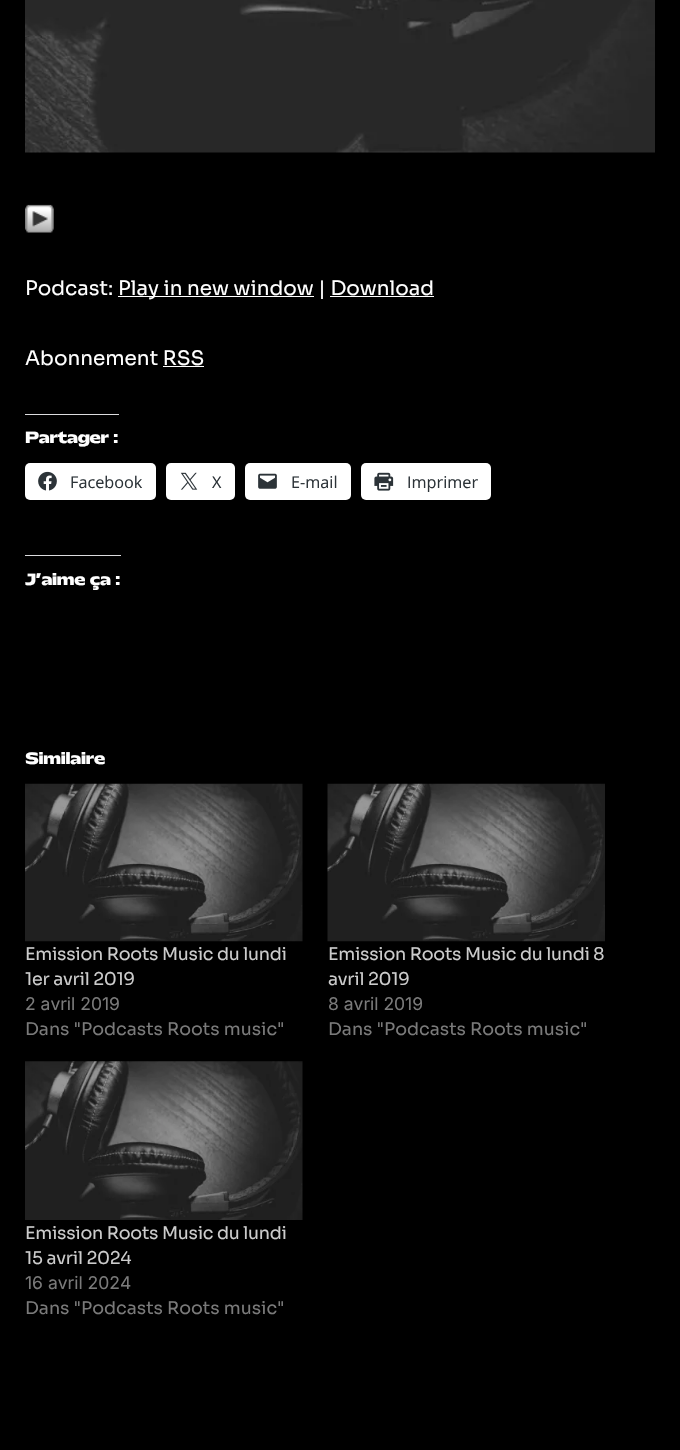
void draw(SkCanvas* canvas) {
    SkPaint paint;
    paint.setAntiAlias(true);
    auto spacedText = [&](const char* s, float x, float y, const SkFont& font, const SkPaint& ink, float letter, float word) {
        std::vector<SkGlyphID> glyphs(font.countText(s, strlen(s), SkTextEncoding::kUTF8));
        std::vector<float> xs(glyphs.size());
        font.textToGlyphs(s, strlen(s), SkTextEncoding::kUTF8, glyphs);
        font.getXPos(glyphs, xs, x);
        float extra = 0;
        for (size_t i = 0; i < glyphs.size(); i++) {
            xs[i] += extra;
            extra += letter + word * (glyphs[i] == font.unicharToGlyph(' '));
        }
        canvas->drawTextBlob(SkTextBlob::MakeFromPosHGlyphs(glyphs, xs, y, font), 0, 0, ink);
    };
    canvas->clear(0xFF000000);
    canvas->drawImageRect(SkImages::DeferredFromEncodedData(SkData::MakeFromFileName("img1.png")), SkRect::MakeXYWH(25, 0, 630, 153), SkSamplingOptions());
    canvas->drawImageRect(SkImages::DeferredFromEncodedData(SkData::MakeFromFileName("img2.png")), SkRect::MakeXYWH(25, 204, 29, 29), SkSamplingOptions());
    SkFont font1(fontMgr->matchFamilyStyle("Sora", SkFontStyle::Normal()), 20);
    font1.setSubpixel(true);
    paint.setColor(0xFFFFFFFF);
    canvas->drawString("Podcast:", 25, 295, font1, paint);
    canvas->drawRect(SkRect::MakeXYWH(118, 296, 196, 1), paint);
    canvas->drawString("Play in new window | Download", 118, 295, font1, paint);
    canvas->drawRect(SkRect::MakeXYWH(330, 296, 104, 1), paint);
    canvas->drawString("Abonnement RSS", 25, 365, font1, paint);
    canvas->drawRect(SkRect::MakeXYWH(163, 366, 41, 1), paint);
    paint.setColor(0xFFDCDCDE);
    canvas->drawRect(SkRect::MakeXYWH(25, 414, 94, 1), paint);
    SkFont font2(fontMgr->matchFamilyStyle("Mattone", SkFontStyle::Bold()), 15);
    font2.setSubpixel(true);
    paint.setColor(0xFFFFFFFF);
    spacedText("Partager :", 25, 443, font2, paint, -0.25f, 0);
    canvas->drawRoundRect(SkRect::MakeXYWH(25, 463, 131, 37), 5, 5, paint);
    canvas->drawImageRect(SkImages::DeferredFromEncodedData(SkData::MakeFromFileName("img3.png")), SkRect::MakeXYWH(38, 471, 19, 20), SkSamplingOptions());
    SkFont font3(fontMgr->matchFamilyStyle("Open Sans", SkFontStyle::Normal()), 16.25f);
    font3.setSubpixel(true);
    paint.setColor(0xFF2C3338);
    canvas->drawString("Facebook", 70, 488, font3, paint);
    paint.setColor(0xFFFFFFFF);
    canvas->drawRoundRect(SkRect::MakeXYWH(166, 463, 69, 37), 5, 5, paint);
    canvas->drawImageRect(SkImages::DeferredFromEncodedData(SkData::MakeFromFileName("img4.png")), SkRect::MakeXYWH(180, 472, 18, 18), SkSamplingOptions());
    paint.setColor(0xFF2C3338);
    canvas->drawString("X", 212, 488, font3, paint);
    paint.setColor(0xFFFFFFFF);
    canvas->drawRoundRect(SkRect::MakeXYWH(245, 463, 106, 37), 5, 5, paint);
    canvas->drawImageRect(SkImages::DeferredFromEncodedData(SkData::MakeFromFileName("img5.png")), SkRect::MakeXYWH(258, 473, 19, 16), SkSamplingOptions());
    paint.setColor(0xFF2C3338);
    canvas->drawString("E-mail", 291, 488, font3, paint);
    paint.setColor(0xFFFFFFFF);
    canvas->drawRoundRect(SkRect::MakeXYWH(361, 463, 130, 37), 5, 5, paint);
    canvas->drawImageRect(SkImages::DeferredFromEncodedData(SkData::MakeFromFileName("img6.png")), SkRect::MakeXYWH(374, 472, 20, 19), SkSamplingOptions());
    paint.setColor(0xFF2C3338);
    canvas->drawString("Imprimer", 407, 488, font3, paint);
    paint.setColor(0xFFDCDCDE);
    canvas->drawRect(SkRect::MakeXYWH(25, 555, 96, 1), paint);
    paint.setColor(0xFFFFFFFF);
    spacedText("J’aime ça :", 25, 585, font2, paint, -0.25f, 0);
    spacedText("Similaire", 25, 764, font2, paint, -0.25f, 0);
    canvas->drawImageRect(SkImages::DeferredFromEncodedData(SkData::MakeFromFileName("img7.png")), SkRect::MakeXYWH(25, 783, 278, 159), SkSamplingOptions());
    SkFont font4(fontMgr->matchFamilyStyle("Sora", SkFontStyle::Normal()), 17.5f);
    font4.setSubpixel(true);
    paint.setColor(0xFFCCCCCC);
    spacedText("Emission Roots Music du lundi", 25, 960, font4, paint, -0.25f, 0);
    spacedText("1er avril 2019", 25, 985, font4, paint, -0.25f, 0);
    SkFont font5(fontMgr->matchFamilyStyle("Inter", SkFontStyle::Normal()), 17.5f);
    font5.setSubpixel(true);
    paint.setColor(0xFF7A7A7A);
    canvas->drawString("2 avril 2019", 25, 1010, font5, paint);
    canvas->drawString("Dans \"Podcasts Roots music\"", 25, 1035, font4, paint);
    canvas->drawImageRect(SkImages::DeferredFromEncodedData(SkData::MakeFromFileName("img8.png")), SkRect::MakeXYWH(327, 783, 278, 159), SkSamplingOptions());
    paint.setColor(0xFFCCCCCC);
    spacedText("Emission Roots Music du lundi 8", 328, 960, font4, paint, -0.25f, 0);
    spacedText("avril 2019", 328, 985, font4, paint, -0.25f, 0);
    paint.setColor(0xFF7A7A7A);
    canvas->drawString("8 avril 2019", 328, 1010, font5, paint);
    canvas->drawString("Dans \"Podcasts Roots music\"", 328, 1035, font4, paint);
    canvas->drawImageRect(SkImages::DeferredFromEncodedData(SkData::MakeFromFileName("img9.png")), SkRect::MakeXYWH(25, 1061, 278, 159), SkSamplingOptions());
    paint.setColor(0xFFCCCCCC);
    spacedText("Emission Roots Music du lundi", 25, 1239, font4, paint, -0.25f, 0);
    spacedText("15 avril 2024", 25, 1264, font4, paint, -0.25f, 0);
    paint.setColor(0xFF7A7A7A);
    canvas->drawString("16 avril 2024", 25, 1289, font5, paint);
    canvas->drawString("Dans \"Podcasts Roots music\"", 25, 1314, font4, paint);
}
